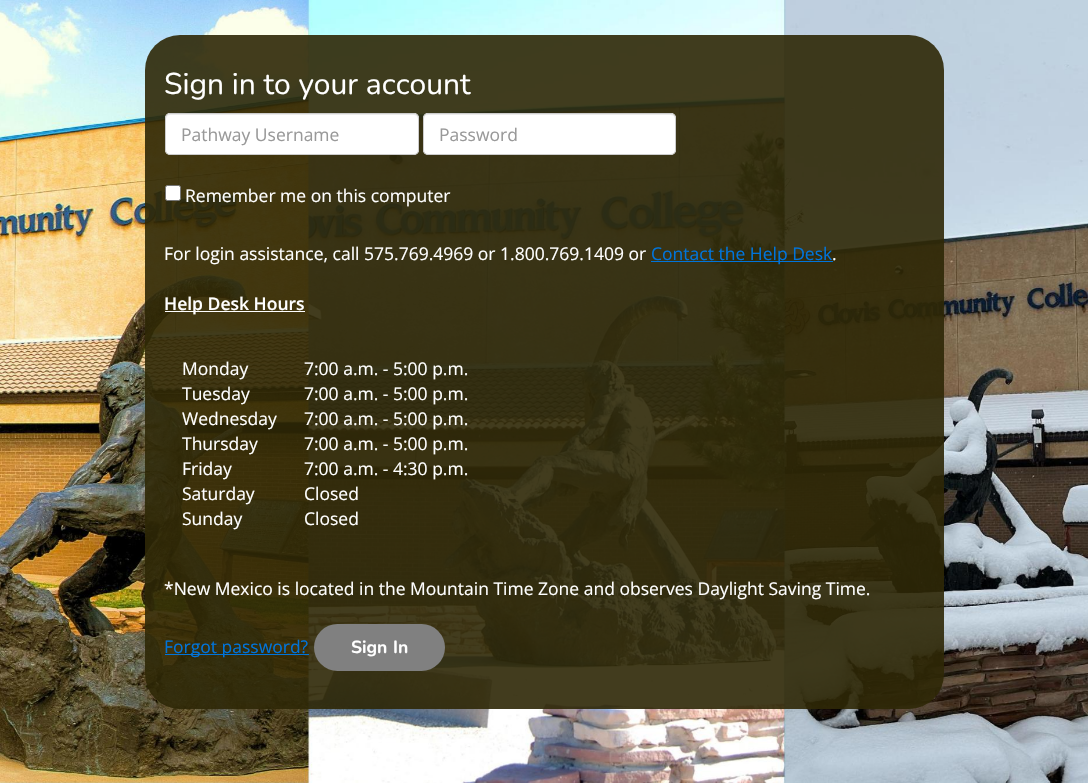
void draw(SkCanvas* canvas) {
    SkPaint paint;
    paint.setAntiAlias(true);
    auto spacedText = [&](const char* s, float x, float y, const SkFont& font, const SkPaint& ink, float letter, float word) {
        std::vector<SkGlyphID> glyphs(font.countText(s, strlen(s), SkTextEncoding::kUTF8));
        std::vector<float> xs(glyphs.size());
        font.textToGlyphs(s, strlen(s), SkTextEncoding::kUTF8, glyphs);
        font.getXPos(glyphs, xs, x);
        float extra = 0;
        for (size_t i = 0; i < glyphs.size(); i++) {
            xs[i] += extra;
            extra += letter + word * (glyphs[i] == font.unicharToGlyph(' '));
        }
        canvas->drawTextBlob(SkTextBlob::MakeFromPosHGlyphs(glyphs, xs, y, font), 0, 0, ink);
    };
    canvas->clear(0xFFFFFFFF);
    canvas->drawImageRect(SkImages::DeferredFromEncodedData(SkData::MakeFromFileName("img1.png")), SkRect::MakeXYWH(0, 0, 1088, 783), SkSamplingOptions());
    paint.setColor(0xE62E2705);
    canvas->drawRoundRect(SkRect::MakeXYWH(145, 35, 799, 674), 35, 35, paint);
    SkFont font1(fontMgr->matchFamilyStyle("Nunito", SkFontStyle::Normal()), 30);
    font1.setSubpixel(true);
    paint.setColor(0xFFFFFFFF);
    canvas->drawString("Sign in to your account", 164, 94, font1, paint);
    canvas->drawRoundRect(SkRect::MakeXYWH(165, 113, 254, 42), 5, 5, paint);
    paint.setColor(0xFFECECEC);
    canvas->drawPath(SkPathBuilder().moveTo(170, 115).lineTo(414, 115).cubicTo(416, 115, 418, 117, 418, 119).lineTo(418, 118).cubicTo(418, 116, 416, 114, 414, 114).lineTo(170, 114).cubicTo(168, 114, 166, 116, 166, 118).lineTo(166, 119).cubicTo(166, 117, 168, 115, 170, 115).close().detach(), paint);
    paint.setStyle(SkPaint::kStroke_Style);
    paint.setStrokeWidth(1);
    paint.setColor(0xFFCCCCCC);
    canvas->drawRoundRect(SkRect::MakeXYWH(165.5f, 113.5f, 253, 41), 4.5f, 4.5f, paint);
    SkFont font2(fontMgr->matchFamilyStyle("Open Sans", SkFontStyle::Normal()), 17.5f);
    font2.setSubpixel(true);
    paint.setStyle(SkPaint::kFill_Style);
    paint.setColor(0xFF999999);
    canvas->drawString("Pathway Username", 181, 141, font2, paint);
    paint.setColor(0xFFFFFFFF);
    canvas->drawRoundRect(SkRect::MakeXYWH(423, 113, 253, 42), 5, 5, paint);
    paint.setColor(0xFFECECEC);
    canvas->drawPath(SkPathBuilder().moveTo(428, 115).lineTo(671, 115).cubicTo(673, 115, 675, 117, 675, 119).lineTo(675, 118).cubicTo(675, 116, 673, 114, 671, 114).lineTo(428, 114).cubicTo(426, 114, 424, 116, 424, 118).lineTo(424, 119).cubicTo(424, 117, 425, 115, 428, 115).close().detach(), paint);
    paint.setStyle(SkPaint::kStroke_Style);
    paint.setColor(0xFFCCCCCC);
    canvas->drawRoundRect(SkRect::MakeXYWH(423.5f, 113.5f, 252, 41), 4.5f, 4.5f, paint);
    paint.setStyle(SkPaint::kFill_Style);
    paint.setColor(0xFF999999);
    canvas->drawString("Password", 439, 141, font2, paint);
    paint.setColor(0xFFFFFFFF);
    canvas->drawRoundRect(SkRect::MakeXYWH(165.5f, 185.5f, 15, 15), 2, 2, paint);
    paint.setStyle(SkPaint::kStroke_Style);
    paint.setColor(0xFF767676);
    canvas->drawRoundRect(SkRect::MakeXYWH(165.5f, 185.5f, 15, 15), 2, 2, paint);
    paint.setStyle(SkPaint::kFill_Style);
    paint.setColor(0xFFFFFFFF);
    canvas->drawString("Remember me on this computer", 185, 202, font2, paint);
    canvas->drawString("For login assistance, call 575.769.4969 or 1.800.769.1409 or", 164, 260, font2, paint);
    paint.setColor(0xFF0074DB);
    canvas->drawRect(SkRect::MakeXYWH(651, 261, 182, 1), paint);
    canvas->drawString("Contact the Help Desk", 651, 260, font2, paint);
    paint.setColor(0xFFFFFFFF);
    canvas->drawString(".", 832, 260, font2, paint);
    canvas->drawRect(SkRect::MakeXYWH(165, 311, 140, 1), paint);
    SkFont font3(fontMgr->matchFamilyStyle("Open Sans", SkFontStyle(600, SkFontStyle::kNormal_Width, SkFontStyle::kUpright_Slant)), 17.5f);
    font3.setSubpixel(true);
    canvas->drawString("Help Desk Hours", 164, 310, font3, paint);
    canvas->drawString("Monday", 182, 375, font2, paint);
    canvas->drawString("7:00 a.m. - 5:00 p.m.", 304, 375, font2, paint);
    canvas->drawString("Tuesday", 182, 400, font2, paint);
    canvas->drawString("7:00 a.m. - 5:00 p.m.", 304, 400, font2, paint);
    canvas->drawString("Wednesday", 182, 425, font2, paint);
    canvas->drawString("7:00 a.m. - 5:00 p.m.", 304, 425, font2, paint);
    canvas->drawString("Thursday", 182, 450, font2, paint);
    canvas->drawString("7:00 a.m. - 5:00 p.m.", 304, 450, font2, paint);
    canvas->drawString("Friday", 182, 475, font2, paint);
    canvas->drawString("7:00 a.m. - 4:30 p.m.", 304, 475, font2, paint);
    canvas->drawString("Saturday", 182, 500, font2, paint);
    canvas->drawString("Closed", 304, 500, font2, paint);
    canvas->drawString("Sunday", 182, 525, font2, paint);
    canvas->drawString("Closed", 304, 525, font2, paint);
    canvas->drawString("*New Mexico is located in the Mountain Time Zone and observes Daylight Saving Time.", 164, 595, font2, paint);
    paint.setColor(0xFF0074DB);
    canvas->drawRect(SkRect::MakeXYWH(165, 654, 144, 1), paint);
    canvas->drawString("Forgot password?", 164, 653, font2, paint);
    paint.setColor(0xFF808080);
    canvas->drawRoundRect(SkRect::MakeXYWH(314, 624, 131, 47), 23.5f, 23.5f, paint);
    SkFont font4(fontMgr->matchFamilyStyle("Nunito", SkFontStyle::Bold()), 17.5f);
    font4.setSubpixel(true);
    paint.setColor(0xFFFFFFFF);
    spacedText("Sign In", 351, 653, font4, paint, 0, 1);
}
